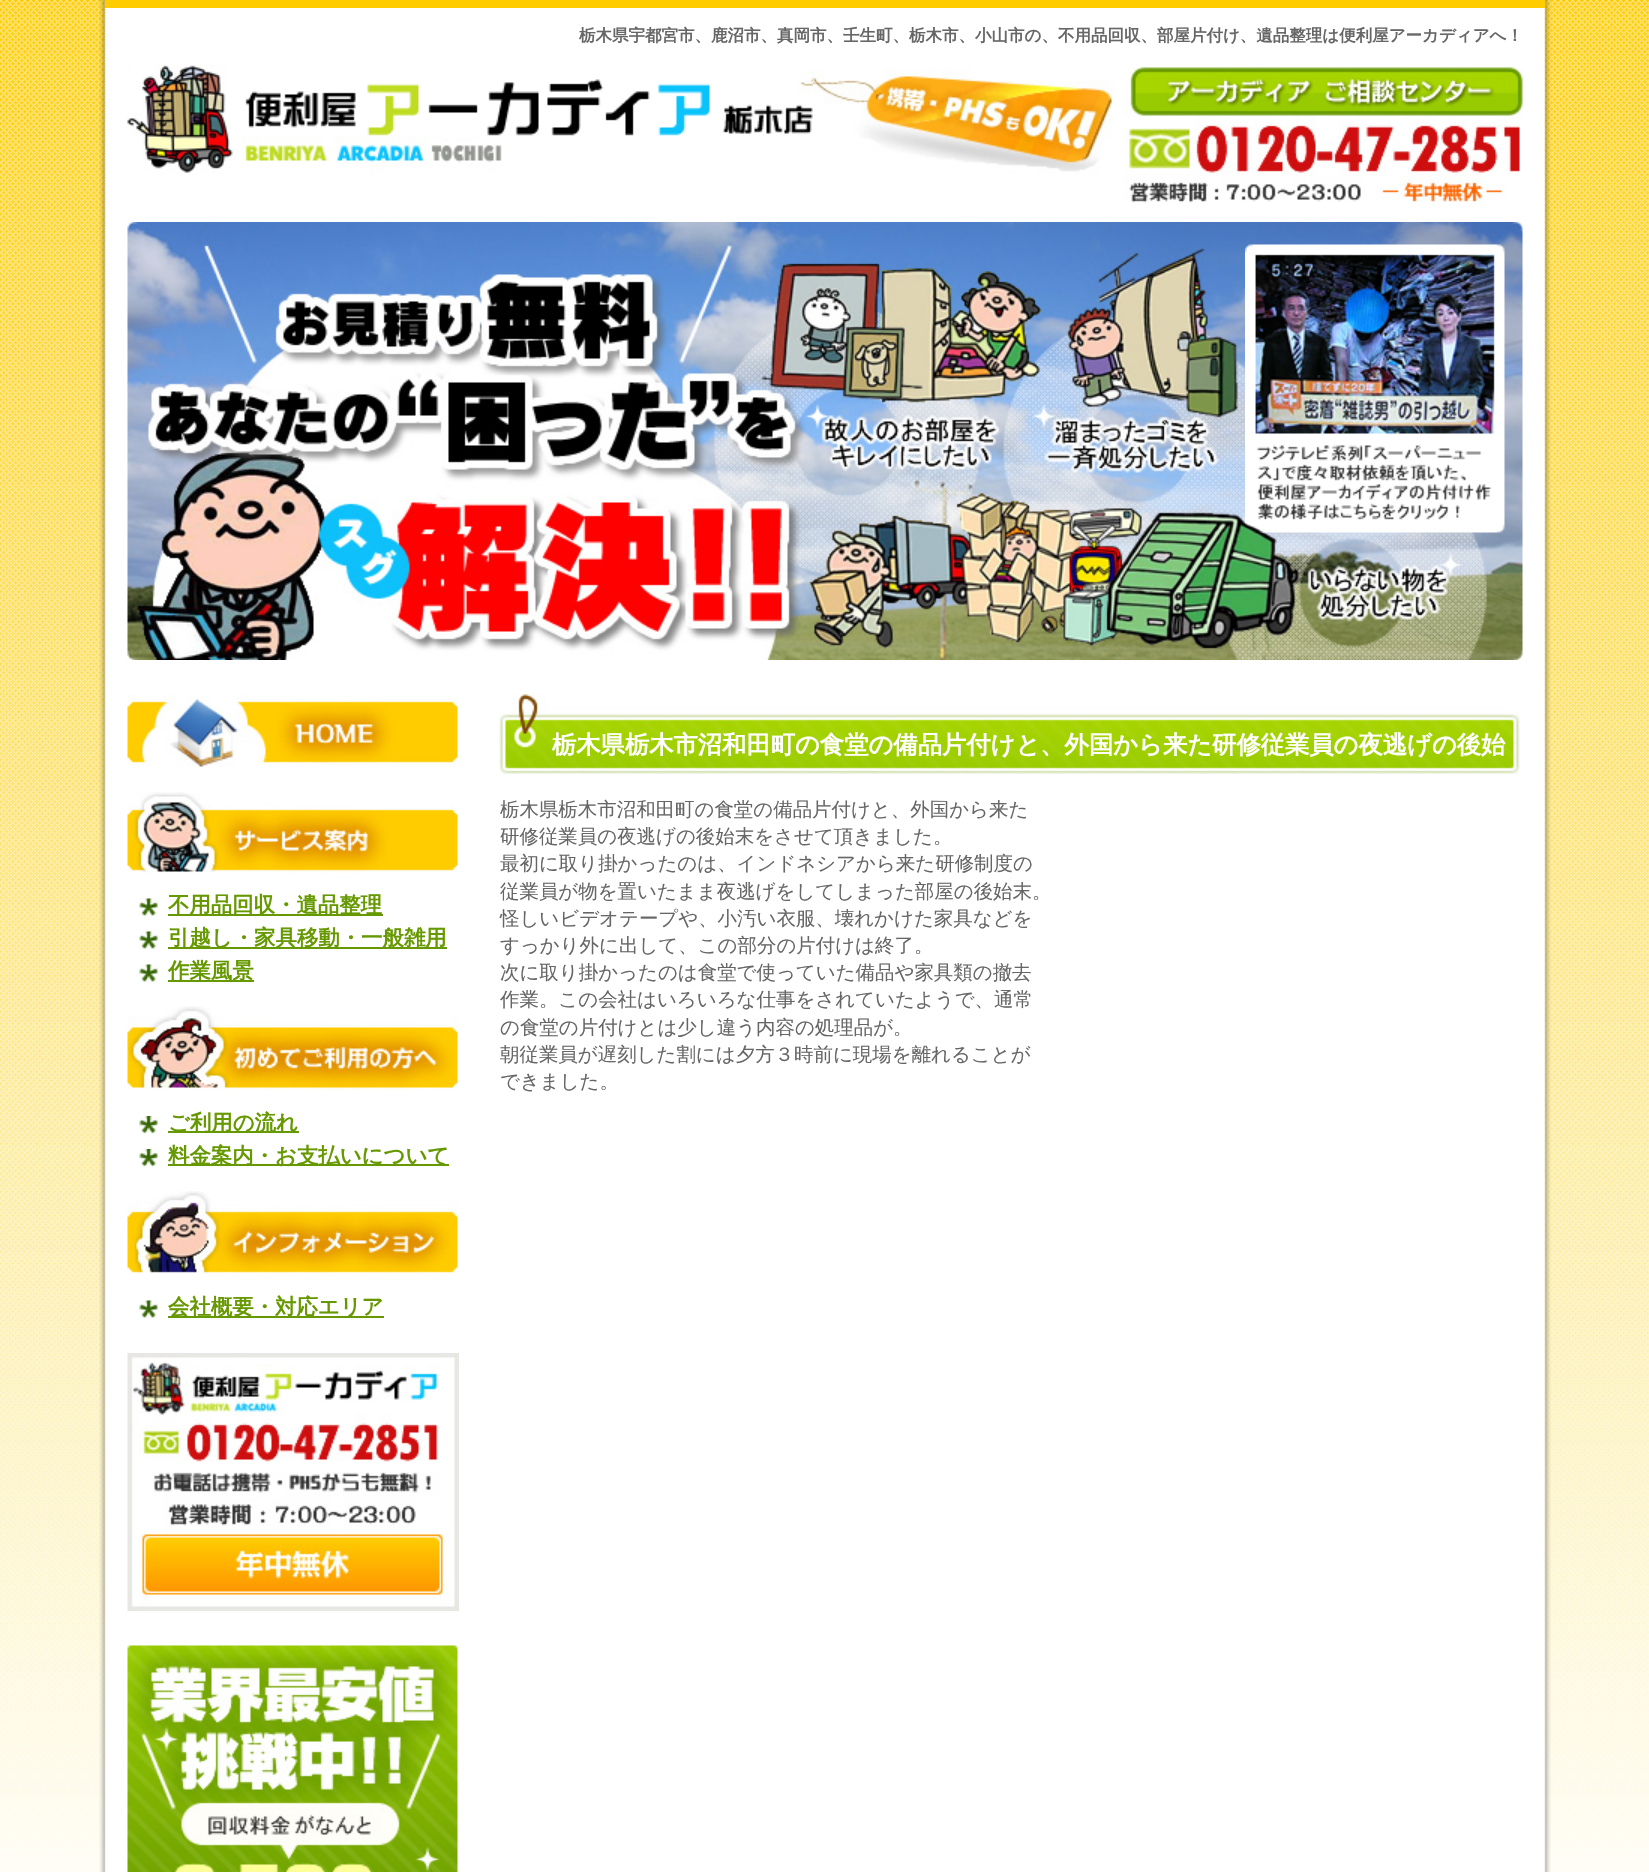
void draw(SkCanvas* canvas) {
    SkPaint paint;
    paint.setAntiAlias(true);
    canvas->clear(0xFFFFFFFF);
    canvas->drawImageRect(SkImages::DeferredFromEncodedData(SkData::MakeFromFileName("img1.png")), SkRect::MakeXYWH(0, 0, 1649, 1872), SkSamplingOptions());
    canvas->drawImageRect(SkImages::DeferredFromEncodedData(SkData::MakeFromFileName("img2.png")), SkRect::MakeXYWH(99, 0, 1452, 1872), SkSamplingOptions());
    paint.setColor(0xFFFFCC00);
    canvas->drawRect(SkRect::MakeXYWH(105, 0, 1440, 8), paint);
    SkFont font1(fontMgr->matchFamilyStyle("WenQuanYi Zen Hei", SkFontStyle::Bold()), 16.5f);
    font1.setSubpixel(true);
    paint.setColor(0xFF666666);
    canvas->drawString("栃木県宇都宮市、鹿沼市、真岡市、壬生町、栃木市、小山市の、不用品回収、部屋片付け、遺品整理は便利屋アーカディアへ！", 579, 41, font1, paint);
    canvas->drawImageRect(SkImages::DeferredFromEncodedData(SkData::MakeFromFileName("img4.png")), SkRect::MakeXYWH(799, 67, 724, 136), SkSamplingOptions());
    canvas->drawImageRect(SkImages::DeferredFromEncodedData(SkData::MakeFromFileName("img3.png")), SkRect::MakeXYWH(127, 64, 686, 110), SkSamplingOptions());
    canvas->drawImageRect(SkImages::DeferredFromEncodedData(SkData::MakeFromFileName("img5.png")), SkRect::MakeXYWH(127, 222, 1396, 438), SkSamplingOptions());
    canvas->drawImageRect(SkImages::DeferredFromEncodedData(SkData::MakeFromFileName("img6.png")), SkRect::MakeXYWH(1245, 244, 260, 289), SkSamplingOptions());
    canvas->drawImageRect(SkImages::DeferredFromEncodedData(SkData::MakeFromFileName("img7.png")), SkRect::MakeXYWH(127, 694, 331, 73), SkSamplingOptions());
    canvas->drawImageRect(SkImages::DeferredFromEncodedData(SkData::MakeFromFileName("img8.png")), SkRect::MakeXYWH(127, 792, 331, 81), SkSamplingOptions());
    canvas->drawImageRect(SkImages::DeferredFromEncodedData(SkData::MakeFromFileName("img9.png")), SkRect::MakeXYWH(139, 898, 19, 19), SkSamplingOptions());
    paint.setColor(0xFF669900);
    canvas->drawRect(SkRect::MakeXYWH(168, 914, 215, 2), paint);
    SkFont font2(fontMgr->matchFamilyStyle("WenQuanYi Zen Hei", SkFontStyle::Bold()), 21.4f);
    font2.setSubpixel(true);
    canvas->drawString("不用品回収・遺品整理", 168, 912, font2, paint);
    canvas->drawImageRect(SkImages::DeferredFromEncodedData(SkData::MakeFromFileName("img9.png")), SkRect::MakeXYWH(139, 931, 19, 19), SkSamplingOptions());
    canvas->drawRect(SkRect::MakeXYWH(168, 947, 279, 2), paint);
    canvas->drawString("引越し・家具移動・一般雑用", 168, 945, font2, paint);
    canvas->drawImageRect(SkImages::DeferredFromEncodedData(SkData::MakeFromFileName("img9.png")), SkRect::MakeXYWH(139, 964, 19, 19), SkSamplingOptions());
    canvas->drawRect(SkRect::MakeXYWH(168, 980, 86, 2), paint);
    canvas->drawString("作業風景", 168, 978, font2, paint);
    canvas->drawImageRect(SkImages::DeferredFromEncodedData(SkData::MakeFromFileName("img10.png")), SkRect::MakeXYWH(127, 1006, 331, 84), SkSamplingOptions());
    canvas->drawImageRect(SkImages::DeferredFromEncodedData(SkData::MakeFromFileName("img11.png")), SkRect::MakeXYWH(139, 1116, 19, 18), SkSamplingOptions());
    canvas->drawRect(SkRect::MakeXYWH(168, 1131, 131, 2), paint);
    canvas->drawString("ご利用の流れ", 168, 1130, font2, paint);
    canvas->drawImageRect(SkImages::DeferredFromEncodedData(SkData::MakeFromFileName("img11.png")), SkRect::MakeXYWH(139, 1149, 19, 18), SkSamplingOptions());
    canvas->drawRect(SkRect::MakeXYWH(168, 1164, 281, 2), paint);
    canvas->drawString("料金案内・お支払いについて", 168, 1163, font2, paint);
    canvas->drawImageRect(SkImages::DeferredFromEncodedData(SkData::MakeFromFileName("img12.png")), SkRect::MakeXYWH(127, 1191, 331, 83), SkSamplingOptions());
    canvas->drawImageRect(SkImages::DeferredFromEncodedData(SkData::MakeFromFileName("img9.png")), SkRect::MakeXYWH(139, 1300, 19, 19), SkSamplingOptions());
    canvas->drawRect(SkRect::MakeXYWH(168, 1316, 216, 2), paint);
    canvas->drawString("会社概要・対応エリア", 168, 1314, font2, paint);
    canvas->drawImageRect(SkImages::DeferredFromEncodedData(SkData::MakeFromFileName("img13.png")), SkRect::MakeXYWH(127, 1353, 332, 258), SkSamplingOptions());
    canvas->drawImageRect(SkImages::DeferredFromEncodedData(SkData::MakeFromFileName("img14.png")), SkRect::MakeXYWH(127, 1645, 331, 227), SkSamplingOptions());
    canvas->drawImageRect(SkImages::DeferredFromEncodedData(SkData::MakeFromFileName("img15.png")), SkRect::MakeXYWH(499, 694, 1021, 80), SkSamplingOptions());
    SkFont font3(fontMgr->matchFamilyStyle("WenQuanYi Zen Hei", SkFontStyle::Bold()), 24.3f);
    font3.setSubpixel(true);
    paint.setColor(0xFFFFFFFF);
    canvas->drawString("栃木県栃木市沼和田町の食堂の備品片付けと、外国から来た研修従業員の夜逃げの後始", 552, 753, font3, paint);
    SkFont font4(fontMgr->matchFamilyStyle("WenQuanYi Zen Hei", SkFontStyle(500, SkFontStyle::kNormal_Width, SkFontStyle::kUpright_Slant)), 19.45f);
    font4.setSubpixel(true);
    paint.setColor(0xFF666666);
    canvas->drawString("栃木県栃木市沼和田町の食堂の備品片付けと、外国から来た", 500, 816, font4, paint);
    canvas->drawString("研修従業員の夜逃げの後始末をさせて頂きました。", 500, 843, font4, paint);
    canvas->drawString("最初に取り掛かったのは、インドネシアから来た研修制度の", 500, 870, font4, paint);
    canvas->drawString("従業員が物を置いたまま夜逃げをしてしまった部屋の後始末。", 500, 898, font4, paint);
    canvas->drawString("怪しいビデオテープや、小汚い衣服、壊れかけた家具などを", 500, 925, font4, paint);
    canvas->drawString("すっかり外に出して、この部分の片付けは終了。", 500, 952, font4, paint);
    canvas->drawString("次に取り掛かったのは食堂で使っていた備品や家具類の撤去", 500, 979, font4, paint);
    canvas->drawString("作業。この会社はいろいろな仕事をされていたようで、通常", 500, 1006, font4, paint);
    canvas->drawString("の食堂の片付けとは少し違う内容の処理品が。", 500, 1034, font4, paint);
    canvas->drawString("朝従業員が遅刻した割には夕方３時前に現場を離れることが", 500, 1061, font4, paint);
    canvas->drawString("できました。", 500, 1088, font4, paint);
}
